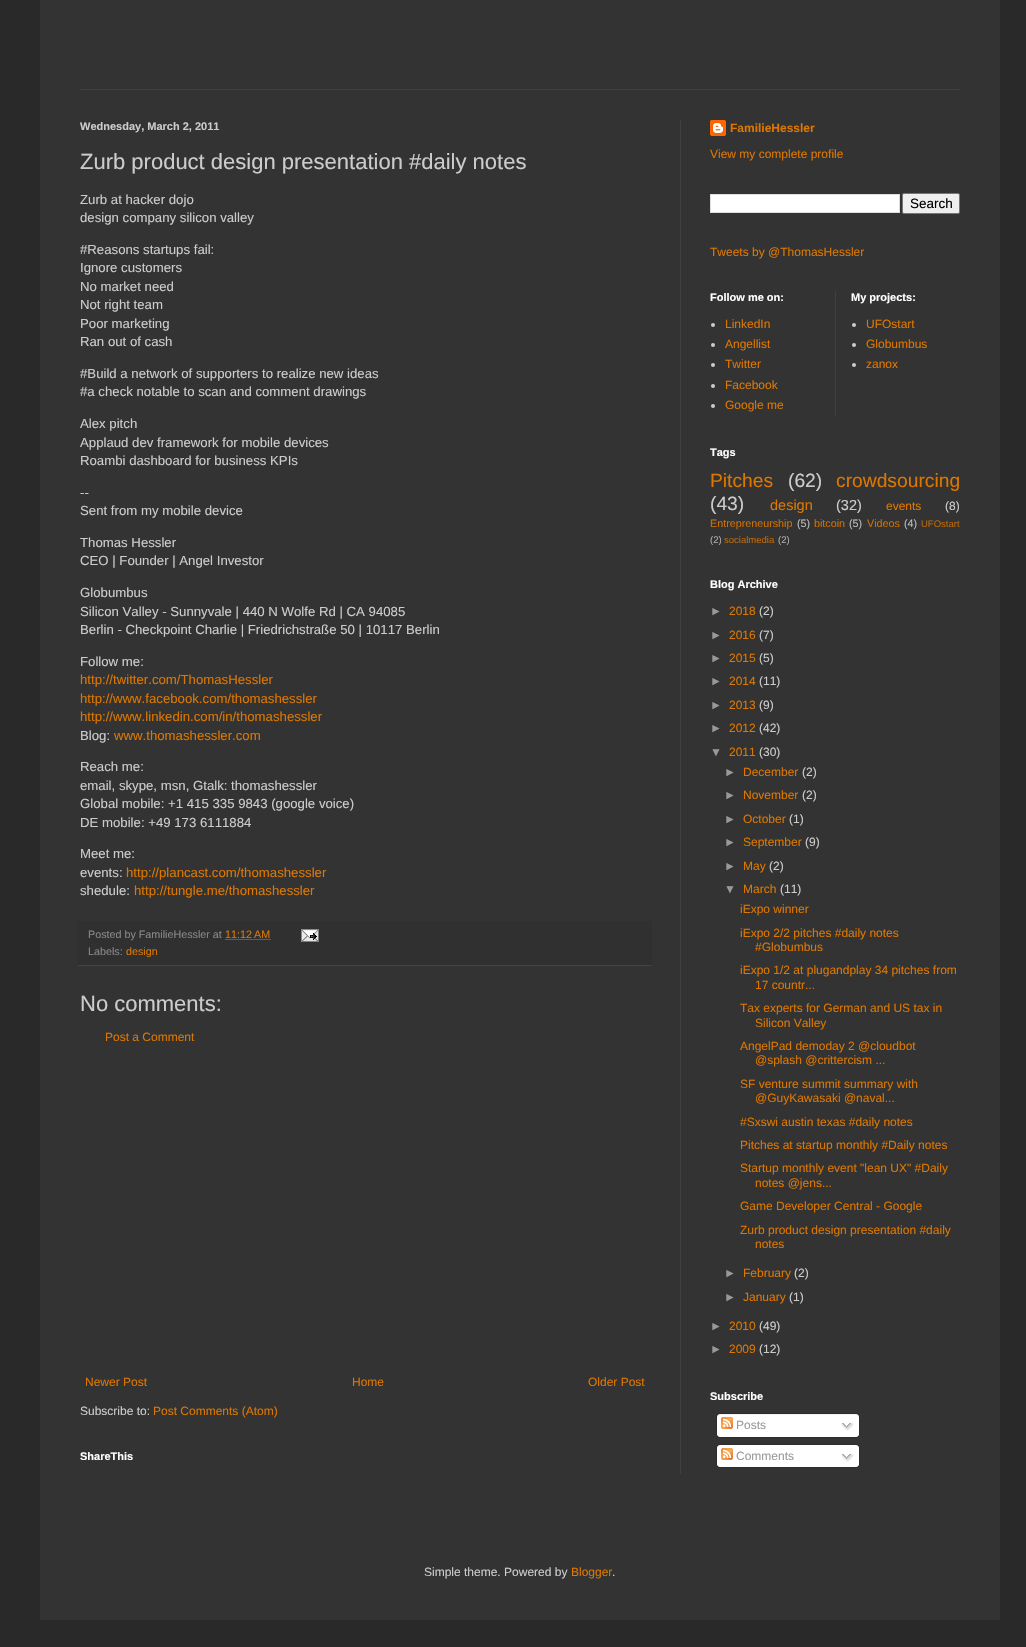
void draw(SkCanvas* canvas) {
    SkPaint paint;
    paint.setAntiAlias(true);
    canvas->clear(0xFF292929);
    paint.setColor(0xFF333333);
    canvas->drawRect(SkRect::MakeXYWH(40, 0, 960, 1620), paint);
    paint.setColor(0xFF404040);
    canvas->drawRect(SkRect::MakeXYWH(80, 89, 880, 1), paint);
    canvas->drawRect(SkRect::MakeXYWH(680, 120, 1, 1354), paint);
    SkFont font1(fontMgr->matchFamilyStyle("Liberation Sans", SkFontStyle::Bold()), 11);
    font1.setSubpixel(true);
    paint.setColor(0xFFCCCCCC);
    canvas->drawString("Wednesday, March 2, 2011", 80, 130, font1, paint);
    SkFont font2(fontMgr->matchFamilyStyle("Liberation Sans", SkFontStyle::Normal()), 22);
    font2.setSubpixel(true);
    canvas->drawString("Zurb product design presentation #daily notes", 80, 169, font2, paint);
    SkFont font3(fontMgr->matchFamilyStyle("Liberation Sans", SkFontStyle::Normal()), 13.2f);
    font3.setSubpixel(true);
    canvas->drawString("Zurb at hacker dojo", 80, 204, font3, paint);
    canvas->drawString("design company silicon valley", 80, 222, font3, paint);
    canvas->drawString("#Reasons startups fail:", 80, 254, font3, paint);
    canvas->drawString("Ignore customers", 80, 272, font3, paint);
    canvas->drawString("No market need", 80, 291, font3, paint);
    canvas->drawString("Not right team", 80, 309, font3, paint);
    canvas->drawString("Poor marketing", 80, 328, font3, paint);
    canvas->drawString("Ran out of cash", 80, 346, font3, paint);
    canvas->drawString("#Build a network of supporters to realize new ideas", 80, 378, font3, paint);
    canvas->drawString("#a check notable to scan and comment drawings", 80, 396, font3, paint);
    canvas->drawString("Alex pitch", 80, 428, font3, paint);
    canvas->drawString("Applaud dev framework for mobile devices", 80, 447, font3, paint);
    canvas->drawString("Roambi dashboard for business KPIs", 80, 465, font3, paint);
    canvas->drawString("--", 80, 497, font3, paint);
    canvas->drawString("Sent from my mobile device", 80, 515, font3, paint);
    canvas->drawString("Thomas Hessler", 80, 547, font3, paint);
    canvas->drawString("CEO | Founder | Angel Investor", 80, 565, font3, paint);
    canvas->drawString("Globumbus", 80, 597, font3, paint);
    canvas->drawString("Silicon Valley - Sunnyvale | 440 N Wolfe Rd | CA 94085", 80, 616, font3, paint);
    canvas->drawString("Berlin - Checkpoint Charlie | Friedrichstraße 50 | 10117 Berlin", 80, 634, font3, paint);
    canvas->drawString("Follow me:", 80, 666, font3, paint);
    paint.setColor(0xFFDD7700);
    canvas->drawString("http://twitter.com/ThomasHessler", 80, 684, font3, paint);
    canvas->drawString("http://www.facebook.com/thomashessler", 80, 703, font3, paint);
    canvas->drawString("http://www.linkedin.com/in/thomashessler", 80, 721, font3, paint);
    paint.setColor(0xFFCCCCCC);
    canvas->drawString("Blog:", 80, 740, font3, paint);
    paint.setColor(0xFFDD7700);
    canvas->drawString("www.thomashessler.com", 114, 740, font3, paint);
    paint.setColor(0xFFCCCCCC);
    canvas->drawString("Reach me:", 80, 771, font3, paint);
    canvas->drawString("email, skype, msn, Gtalk: thomashessler", 80, 790, font3, paint);
    canvas->drawString("Global mobile: +1 415 335 9843 (google voice)", 80, 808, font3, paint);
    canvas->drawString("DE mobile: +49 173 6111884", 80, 827, font3, paint);
    canvas->drawString("Meet me:", 80, 858, font3, paint);
    canvas->drawString("events:", 80, 877, font3, paint);
    paint.setColor(0xFFDD7700);
    canvas->drawString("http://plancast.com/thomashessler", 126, 877, font3, paint);
    paint.setColor(0xFFCCCCCC);
    canvas->drawString("shedule:", 80, 895, font3, paint);
    paint.setColor(0xFFDD7700);
    canvas->drawString("http://tungle.me/thomashessler", 134, 895, font3, paint);
    paint.setColor(0xFF303030);
    canvas->drawRect(SkRect::MakeXYWH(78, 921, 574, 44), paint);
    paint.setColor(0xFF444444);
    canvas->drawRect(SkRect::MakeXYWH(78, 965, 574, 1), paint);
    SkFont font4(fontMgr->matchFamilyStyle("Liberation Sans", SkFontStyle::Normal()), 10.75f);
    font4.setSubpixel(true);
    paint.setColor(0xFF888888);
    canvas->drawString("Posted by FamilieHessler at", 88, 938, font4, paint);
    paint.setColor(0xFFDD7700);
    canvas->drawString("11:12 AM", 225, 938, font4, paint);
    paint.setStyle(SkPaint::kStroke_Style);
    paint.setStrokeWidth(1);
    paint.setPathEffect(SkDashPathEffect::Make({{1, 1}}, 0));
    canvas->drawPath(SkPathBuilder().moveTo(225.5f, 939.5f).lineTo(271, 939.5f).detach(), paint);
    paint.setPathEffect(nullptr);
    canvas->drawImageRect(SkImages::DeferredFromEncodedData(SkData::MakeFromFileName("img1.png")), SkRect::MakeXYWH(301, 929, 18, 13), SkSamplingOptions());
    paint.setStyle(SkPaint::kFill_Style);
    paint.setColor(0xFF888888);
    canvas->drawString("Labels:", 88, 955, font4, paint);
    paint.setColor(0xFFDD7700);
    canvas->drawString("design", 126, 955, font4, paint);
    paint.setColor(0xFFCCCCCC);
    canvas->drawString("No comments:", 80, 1011, font2, paint);
    SkFont font5(fontMgr->matchFamilyStyle("Liberation Sans", SkFontStyle::Normal()), 12);
    font5.setSubpixel(true);
    paint.setColor(0xFFDD7700);
    canvas->drawString("Post a Comment", 105, 1041, font5, paint);
    canvas->drawString("Newer Post", 85, 1386, font5, paint);
    canvas->drawString("Home", 352, 1386, font5, paint);
    canvas->drawString("Older Post", 588, 1386, font5, paint);
    paint.setColor(0xFFCCCCCC);
    canvas->drawString("Subscribe to:", 80, 1415, font5, paint);
    paint.setColor(0xFFDD7700);
    canvas->drawString("Post Comments (Atom)", 153, 1415, font5, paint);
    paint.setColor(0xFFFFFFFF);
    canvas->drawString("ShareThis", 80, 1460, font1, paint);
    canvas->drawImageRect(SkImages::DeferredFromEncodedData(SkData::MakeFromFileName("img2.png")), SkRect::MakeXYWH(710, 120, 16, 16), SkSamplingOptions());
    SkFont font6(fontMgr->matchFamilyStyle("Liberation Sans", SkFontStyle::Bold()), 12);
    font6.setSubpixel(true);
    paint.setColor(0xFFDD7700);
    canvas->drawString("FamilieHessler", 730, 132, font6, paint);
    canvas->drawString("View my complete profile", 710, 158, font5, paint);
    paint.setColor(0xFFFFFFFF);
    canvas->drawRect(SkRect::MakeXYWH(710.5f, 194.5f, 189, 18), paint);
    paint.setStyle(SkPaint::kStroke_Style);
    paint.setColor(0xFFDDDDDD);
    canvas->drawRect(SkRect::MakeXYWH(710.5f, 194.5f, 189, 18), paint);
    paint.setStyle(SkPaint::kFill_Style);
    paint.setColor(0xFFEFEFEF);
    canvas->drawRoundRect(SkRect::MakeXYWH(902.5f, 193.5f, 57, 20), 1.5f, 1.5f, paint);
    paint.setStyle(SkPaint::kStroke_Style);
    paint.setColor(0xFF767676);
    canvas->drawRoundRect(SkRect::MakeXYWH(902.5f, 193.5f, 57, 20), 1.5f, 1.5f, paint);
    SkFont font7(fontMgr->matchFamilyStyle("Liberation Sans", SkFontStyle::Normal()), 13.5f);
    font7.setSubpixel(true);
    paint.setStyle(SkPaint::kFill_Style);
    paint.setColor(0xFF000000);
    canvas->drawString("Search", 910, 208, font7, paint);
    paint.setColor(0xFFDD7700);
    canvas->drawString("Tweets by @ThomasHessler", 710, 256, font5, paint);
    paint.setColor(0xFFFFFFFF);
    canvas->drawString("Follow me on:", 710, 301, font1, paint);
    paint.setColor(0xFFCCCCCC);
    canvas->drawCircle(713, 325, 2, paint);
    paint.setColor(0xFFDD7700);
    canvas->drawString("LinkedIn", 725, 328, font5, paint);
    paint.setColor(0xFFCCCCCC);
    canvas->drawCircle(713, 345, 2, paint);
    paint.setColor(0xFFDD7700);
    canvas->drawString("Angellist", 725, 348, font5, paint);
    paint.setColor(0xFFCCCCCC);
    canvas->drawCircle(713, 365, 2, paint);
    paint.setColor(0xFFDD7700);
    canvas->drawString("Twitter", 725, 368, font5, paint);
    paint.setColor(0xFFCCCCCC);
    canvas->drawCircle(713, 386, 2, paint);
    paint.setColor(0xFFDD7700);
    canvas->drawString("Facebook", 725, 389, font5, paint);
    paint.setColor(0xFFCCCCCC);
    canvas->drawCircle(713, 406, 2, paint);
    paint.setColor(0xFFDD7700);
    canvas->drawString("Google me", 725, 409, font5, paint);
    paint.setColor(0xFF404040);
    canvas->drawRect(SkRect::MakeXYWH(835, 291, 1, 125), paint);
    paint.setColor(0xFFFFFFFF);
    canvas->drawString("My projects:", 851, 301, font1, paint);
    paint.setColor(0xFFCCCCCC);
    canvas->drawCircle(854, 325, 2, paint);
    paint.setColor(0xFFDD7700);
    canvas->drawString("UFOstart", 866, 328, font5, paint);
    paint.setColor(0xFFCCCCCC);
    canvas->drawCircle(854, 345, 2, paint);
    paint.setColor(0xFFDD7700);
    canvas->drawString("Globumbus", 866, 348, font5, paint);
    paint.setColor(0xFFCCCCCC);
    canvas->drawCircle(854, 365, 2, paint);
    paint.setColor(0xFFDD7700);
    canvas->drawString("zanox", 866, 368, font5, paint);
    paint.setColor(0xFFFFFFFF);
    canvas->drawString("Tags", 710, 456, font1, paint);
    SkFont font8(fontMgr->matchFamilyStyle("Liberation Sans", SkFontStyle::Normal()), 19.25f);
    font8.setSubpixel(true);
    paint.setColor(0xFFDD7700);
    canvas->drawString("Pitches", 710, 487, font8, paint);
    paint.setColor(0xFFCCCCCC);
    canvas->drawString("(62)", 788, 487, font8, paint);
    paint.setColor(0xFFDD7700);
    canvas->drawString("crowdsourcing", 836, 487, font8, paint);
    paint.setColor(0xFFCCCCCC);
    canvas->drawString("(43)", 710, 510, font8, paint);
    SkFont font9(fontMgr->matchFamilyStyle("Liberation Sans", SkFontStyle::Normal()), 14.5f);
    font9.setSubpixel(true);
    paint.setColor(0xFFDD7700);
    canvas->drawString("design", 770, 510, font9, paint);
    paint.setColor(0xFFCCCCCC);
    canvas->drawString("(32)", 836, 510, font9, paint);
    paint.setColor(0xFFDD7700);
    canvas->drawString("events", 886, 510, font5, paint);
    paint.setColor(0xFFCCCCCC);
    canvas->drawString("(8)", 945, 510, font5, paint);
    paint.setColor(0xFFCC7005);
    canvas->drawString("Entrepreneurship", 710, 527, font4, paint);
    paint.setColor(0xFFBDBDBD);
    canvas->drawString("(5)", 797, 527, font4, paint);
    paint.setColor(0xFFCC7005);
    canvas->drawString("bitcoin", 814, 527, font4, paint);
    paint.setColor(0xFFBDBDBD);
    canvas->drawString("(5)", 849, 527, font4, paint);
    paint.setColor(0xFFCC7005);
    canvas->drawString("Videos", 867, 527, font4, paint);
    paint.setColor(0xFFBDBDBD);
    canvas->drawString("(4)", 904, 527, font4, paint);
    SkFont font10(fontMgr->matchFamilyStyle("Liberation Sans", SkFontStyle::Normal()), 9.5f);
    font10.setSubpixel(true);
    paint.setColor(0xFFBB690A);
    canvas->drawString("UFOstart", 921, 527, font10, paint);
    paint.setColor(0xFFADADAD);
    canvas->drawString("(2)", 710, 543, font10, paint);
    paint.setColor(0xFFBB690A);
    canvas->drawString("socialmedia", 724, 543, font10, paint);
    paint.setColor(0xFFADADAD);
    canvas->drawString("(2)", 778, 543, font10, paint);
    paint.setColor(0xFFFFFFFF);
    canvas->drawString("Blog Archive", 710, 588, font1, paint);
    paint.setColor(0xFF999999);
    canvas->drawString("►", 710, 615, font5, paint);
    paint.setColor(0xFFDD7700);
    canvas->drawString("2018", 729, 615, font5, paint);
    paint.setColor(0xFFCCCCCC);
    canvas->drawString("(2)", 759, 615, font5, paint);
    paint.setColor(0xFF999999);
    canvas->drawString("►", 710, 639, font5, paint);
    paint.setColor(0xFFDD7700);
    canvas->drawString("2016", 729, 639, font5, paint);
    paint.setColor(0xFFCCCCCC);
    canvas->drawString("(7)", 759, 639, font5, paint);
    paint.setColor(0xFF999999);
    canvas->drawString("►", 710, 662, font5, paint);
    paint.setColor(0xFFDD7700);
    canvas->drawString("2015", 729, 662, font5, paint);
    paint.setColor(0xFFCCCCCC);
    canvas->drawString("(5)", 759, 662, font5, paint);
    paint.setColor(0xFF999999);
    canvas->drawString("►", 710, 685, font5, paint);
    paint.setColor(0xFFDD7700);
    canvas->drawString("2014", 729, 685, font5, paint);
    paint.setColor(0xFFCCCCCC);
    canvas->drawString("(11)", 759, 685, font5, paint);
    paint.setColor(0xFF999999);
    canvas->drawString("►", 710, 709, font5, paint);
    paint.setColor(0xFFDD7700);
    canvas->drawString("2013", 729, 709, font5, paint);
    paint.setColor(0xFFCCCCCC);
    canvas->drawString("(9)", 759, 709, font5, paint);
    paint.setColor(0xFF999999);
    canvas->drawString("►", 710, 732, font5, paint);
    paint.setColor(0xFFDD7700);
    canvas->drawString("2012", 729, 732, font5, paint);
    paint.setColor(0xFFCCCCCC);
    canvas->drawString("(42)", 759, 732, font5, paint);
    paint.setColor(0xFF999999);
    canvas->drawString("▼", 710, 756, font5, paint);
    paint.setColor(0xFFDD7700);
    canvas->drawString("2011", 729, 756, font5, paint);
    paint.setColor(0xFFCCCCCC);
    canvas->drawString("(30)", 759, 756, font5, paint);
    paint.setColor(0xFF999999);
    canvas->drawString("►", 724, 776, font5, paint);
    paint.setColor(0xFFDD7700);
    canvas->drawString("December", 743, 776, font5, paint);
    paint.setColor(0xFFCCCCCC);
    canvas->drawString("(2)", 802, 776, font5, paint);
    paint.setColor(0xFF999999);
    canvas->drawString("►", 724, 799, font5, paint);
    paint.setColor(0xFFDD7700);
    canvas->drawString("November", 743, 799, font5, paint);
    paint.setColor(0xFFCCCCCC);
    canvas->drawString("(2)", 802, 799, font5, paint);
    paint.setColor(0xFF999999);
    canvas->drawString("►", 724, 823, font5, paint);
    paint.setColor(0xFFDD7700);
    canvas->drawString("October", 743, 823, font5, paint);
    paint.setColor(0xFFCCCCCC);
    canvas->drawString("(1)", 789, 823, font5, paint);
    paint.setColor(0xFF999999);
    canvas->drawString("►", 724, 846, font5, paint);
    paint.setColor(0xFFDD7700);
    canvas->drawString("September", 743, 846, font5, paint);
    paint.setColor(0xFFCCCCCC);
    canvas->drawString("(9)", 805, 846, font5, paint);
    paint.setColor(0xFF999999);
    canvas->drawString("►", 724, 870, font5, paint);
    paint.setColor(0xFFDD7700);
    canvas->drawString("May", 743, 870, font5, paint);
    paint.setColor(0xFFCCCCCC);
    canvas->drawString("(2)", 769, 870, font5, paint);
    paint.setColor(0xFF999999);
    canvas->drawString("▼", 724, 893, font5, paint);
    paint.setColor(0xFFDD7700);
    canvas->drawString("March", 743, 893, font5, paint);
    paint.setColor(0xFFCCCCCC);
    canvas->drawString("(11)", 780, 893, font5, paint);
    paint.setColor(0xFFDD7700);
    canvas->drawString("iExpo winner", 740, 913, font5, paint);
    canvas->drawString("iExpo 2/2 pitches #daily notes", 740, 937, font5, paint);
    canvas->drawString("#Globumbus", 755, 951, font5, paint);
    canvas->drawString("iExpo 1/2 at plugandplay 34 pitches from", 740, 974, font5, paint);
    canvas->drawString("17 countr...", 755, 989, font5, paint);
    canvas->drawString("Tax experts for German and US tax in", 740, 1012, font5, paint);
    canvas->drawString("Silicon Valley", 755, 1027, font5, paint);
    canvas->drawString("AngelPad demoday 2 @cloudbot", 740, 1050, font5, paint);
    canvas->drawString("@splash @crittercism ...", 755, 1064, font5, paint);
    canvas->drawString("SF venture summit summary with", 740, 1088, font5, paint);
    canvas->drawString("@GuyKawasaki @naval...", 755, 1102, font5, paint);
    canvas->drawString("#Sxswi austin texas #daily notes", 740, 1126, font5, paint);
    canvas->drawString("Pitches at startup monthly #Daily notes", 740, 1149, font5, paint);
    canvas->drawString("Startup monthly event \"lean UX\" #Daily", 740, 1172, font5, paint);
    canvas->drawString("notes @jens...", 755, 1187, font5, paint);
    canvas->drawString("Game Developer Central - Google", 740, 1210, font5, paint);
    canvas->drawString("Zurb product design presentation #daily", 740, 1234, font5, paint);
    canvas->drawString("notes", 755, 1248, font5, paint);
    paint.setColor(0xFF999999);
    canvas->drawString("►", 724, 1277, font5, paint);
    paint.setColor(0xFFDD7700);
    canvas->drawString("February", 743, 1277, font5, paint);
    paint.setColor(0xFFCCCCCC);
    canvas->drawString("(2)", 794, 1277, font5, paint);
    paint.setColor(0xFF999999);
    canvas->drawString("►", 724, 1301, font5, paint);
    paint.setColor(0xFFDD7700);
    canvas->drawString("January", 743, 1301, font5, paint);
    paint.setColor(0xFFCCCCCC);
    canvas->drawString("(1)", 789, 1301, font5, paint);
    paint.setColor(0xFF999999);
    canvas->drawString("►", 710, 1330, font5, paint);
    paint.setColor(0xFFDD7700);
    canvas->drawString("2010", 729, 1330, font5, paint);
    paint.setColor(0xFFCCCCCC);
    canvas->drawString("(49)", 759, 1330, font5, paint);
    paint.setColor(0xFF999999);
    canvas->drawString("►", 710, 1353, font5, paint);
    paint.setColor(0xFFDD7700);
    canvas->drawString("2009", 729, 1353, font5, paint);
    paint.setColor(0xFFCCCCCC);
    canvas->drawString("(12)", 759, 1353, font5, paint);
    paint.setColor(0xFFFFFFFF);
    canvas->drawString("Subscribe", 710, 1400, font1, paint);
    canvas->drawImageRect(SkImages::DeferredFromEncodedData(SkData::MakeFromFileName("img3.png")), SkRect::MakeXYWH(716, 1413, 144, 22), SkSamplingOptions());
    canvas->drawImageRect(SkImages::DeferredFromEncodedData(SkData::MakeFromFileName("img4.png")), SkRect::MakeXYWH(721, 1417, 12, 12), SkSamplingOptions());
    paint.setColor(0xFF999999);
    canvas->drawString("Posts", 736, 1429, font5, paint);
    canvas->drawImageRect(SkImages::DeferredFromEncodedData(SkData::MakeFromFileName("img5.png")), SkRect::MakeXYWH(841, 1422, 13, 9), SkSamplingOptions());
    canvas->drawImageRect(SkImages::DeferredFromEncodedData(SkData::MakeFromFileName("img6.png")), SkRect::MakeXYWH(717, 1435, 143, 3), SkSamplingOptions());
    canvas->drawImageRect(SkImages::DeferredFromEncodedData(SkData::MakeFromFileName("img7.png")), SkRect::MakeXYWH(716, 1444, 144, 21), SkSamplingOptions());
    canvas->drawImageRect(SkImages::DeferredFromEncodedData(SkData::MakeFromFileName("img4.png")), SkRect::MakeXYWH(721, 1448, 12, 12), SkSamplingOptions());
    canvas->drawString("Comments", 736, 1460, font5, paint);
    canvas->drawImageRect(SkImages::DeferredFromEncodedData(SkData::MakeFromFileName("img5.png")), SkRect::MakeXYWH(841, 1453, 13, 9), SkSamplingOptions());
    canvas->drawImageRect(SkImages::DeferredFromEncodedData(SkData::MakeFromFileName("img6.png")), SkRect::MakeXYWH(717, 1465, 143, 3), SkSamplingOptions());
    paint.setColor(0xFFCCCCCC);
    canvas->drawString("Simple theme. Powered by", 424, 1576, font5, paint);
    paint.setColor(0xFFDD7700);
    canvas->drawString("Blogger", 571, 1576, font5, paint);
    paint.setColor(0xFFCCCCCC);
    canvas->drawString(".", 612, 1576, font5, paint);
}
